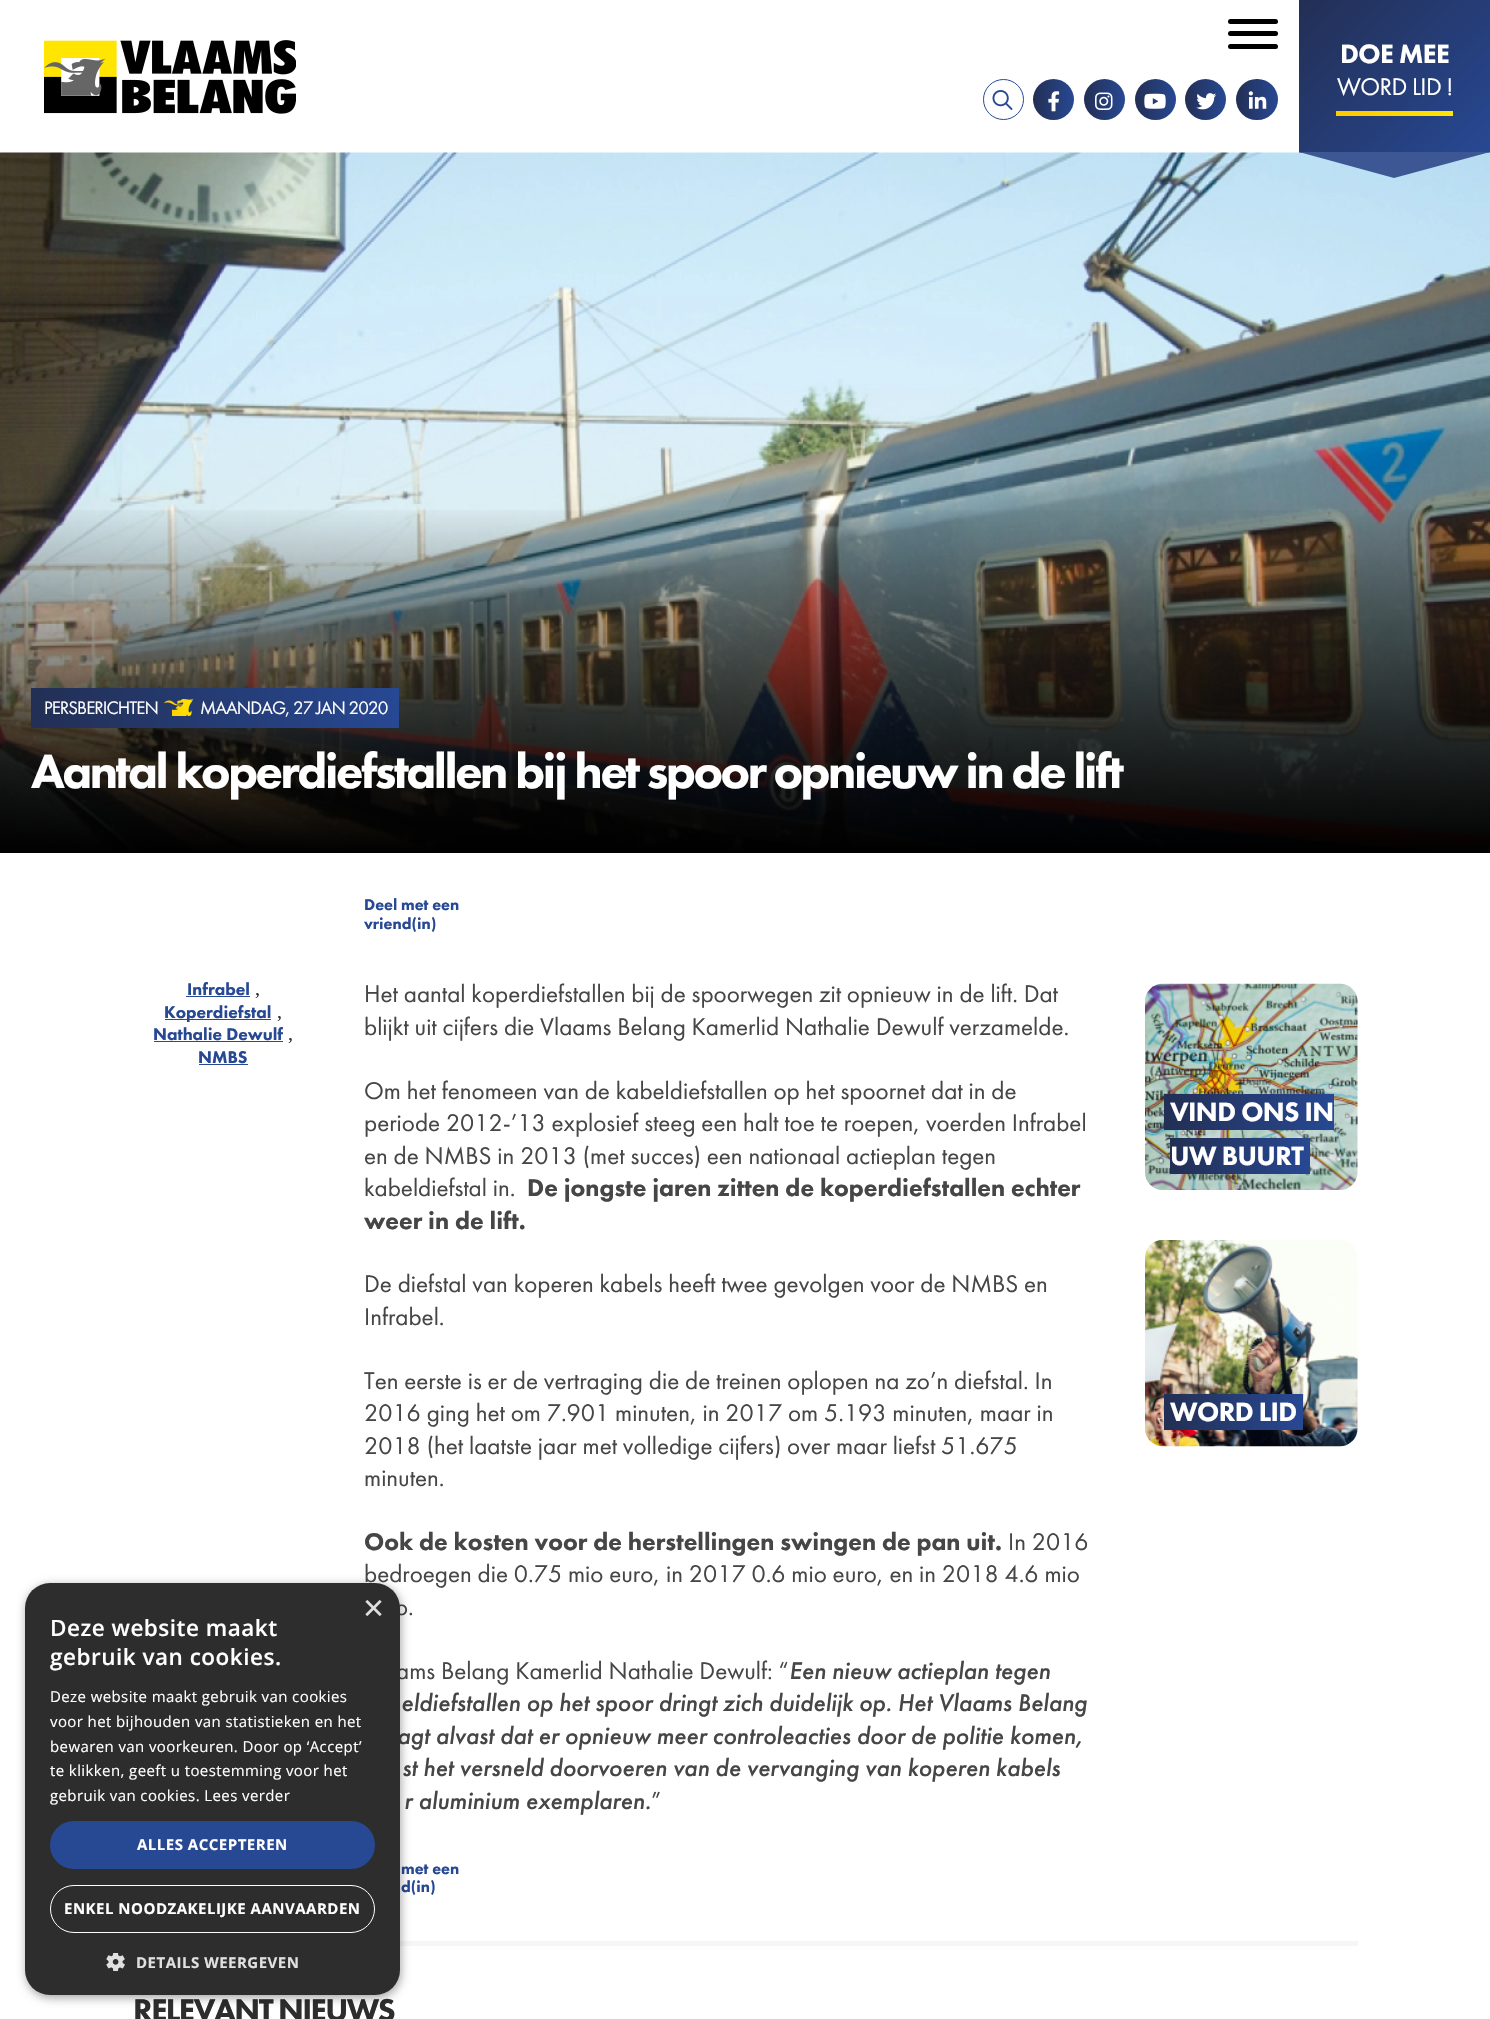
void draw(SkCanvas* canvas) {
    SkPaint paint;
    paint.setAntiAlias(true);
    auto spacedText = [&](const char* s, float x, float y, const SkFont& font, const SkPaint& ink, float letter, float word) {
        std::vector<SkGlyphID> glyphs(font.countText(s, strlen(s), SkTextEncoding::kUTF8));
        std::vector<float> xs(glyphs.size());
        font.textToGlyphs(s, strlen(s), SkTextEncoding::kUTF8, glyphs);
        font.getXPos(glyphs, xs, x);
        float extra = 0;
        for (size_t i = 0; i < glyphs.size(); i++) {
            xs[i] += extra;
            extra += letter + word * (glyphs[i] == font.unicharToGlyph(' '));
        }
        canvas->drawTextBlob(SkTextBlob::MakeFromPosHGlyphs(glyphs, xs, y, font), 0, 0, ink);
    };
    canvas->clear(0xFFFFFFFF);
    paint.setColor(0xFF000000);
    canvas->drawRoundRect(SkRect::MakeXYWH(1228, 31, 50, 5), 2.5f, 2.5f, paint);
    canvas->drawRoundRect(SkRect::MakeXYWH(1228, 19, 50, 5), 2.5f, 2.5f, paint);
    canvas->drawRoundRect(SkRect::MakeXYWH(1228, 44, 50, 5), 2.5f, 2.5f, paint);
    canvas->drawImageRect(SkImages::DeferredFromEncodedData(SkData::MakeFromFileName("img1.png")), SkRect::MakeXYWH(44, 40, 252, 74), SkSamplingOptions());
    paint.setStyle(SkPaint::kStroke_Style);
    paint.setStrokeWidth(1);
    paint.setColor(0xFF274893);
    canvas->drawCircle(1003.5f, 99.5f, 20, paint);
    canvas->drawImageRect(SkImages::DeferredFromEncodedData(SkData::MakeFromFileName("img2.png")), SkRect::MakeXYWH(992, 90, 21, 20), SkSamplingOptions());
    paint.setStyle(SkPaint::kFill_Style);
    {
        const SkColor colors[] = {0xFF233056, 0xFF274893};
        const float stops[] = {0.03f, 1};
        const SkPoint ends[] = {{1033, 99}, {1074, 99}};
        paint.setShader(SkGradientShader::MakeLinear(ends, colors, stops, 2, SkTileMode::kClamp));
        paint.setAlpha(255);
    }
    canvas->drawCircle(1053.5f, 99.5f, 20.5f, paint);
    canvas->drawImageRect(SkImages::DeferredFromEncodedData(SkData::MakeFromFileName("img3.png")), SkRect::MakeXYWH(1048, 91, 12, 21), SkSamplingOptions());
    {
        const SkColor colors[] = {0xFF233056, 0xFF274893};
        const float stops[] = {0.03f, 1};
        const SkPoint ends[] = {{1084, 99}, {1125, 99}};
        paint.setShader(SkGradientShader::MakeLinear(ends, colors, stops, 2, SkTileMode::kClamp));
        paint.setAlpha(255);
    }
    canvas->drawCircle(1104.5f, 99.5f, 20.5f, paint);
    canvas->drawImageRect(SkImages::DeferredFromEncodedData(SkData::MakeFromFileName("img4.png")), SkRect::MakeXYWH(1095, 92, 18, 18), SkSamplingOptions());
    {
        const SkColor colors[] = {0xFF233056, 0xFF274893};
        const float stops[] = {0.03f, 1};
        const SkPoint ends[] = {{1135, 99}, {1176, 99}};
        paint.setShader(SkGradientShader::MakeLinear(ends, colors, stops, 2, SkTileMode::kClamp));
        paint.setAlpha(255);
    }
    canvas->drawCircle(1155.5f, 99.5f, 20.5f, paint);
    canvas->drawImageRect(SkImages::DeferredFromEncodedData(SkData::MakeFromFileName("img5.png")), SkRect::MakeXYWH(1144, 93, 22, 16), SkSamplingOptions());
    {
        const SkColor colors[] = {0xFF233056, 0xFF274893};
        const float stops[] = {0.03f, 1};
        const SkPoint ends[] = {{1185, 99}, {1226, 99}};
        paint.setShader(SkGradientShader::MakeLinear(ends, colors, stops, 2, SkTileMode::kClamp));
        paint.setAlpha(255);
    }
    canvas->drawCircle(1205.5f, 99.5f, 20.5f, paint);
    canvas->drawImageRect(SkImages::DeferredFromEncodedData(SkData::MakeFromFileName("img6.png")), SkRect::MakeXYWH(1196, 93, 21, 17), SkSamplingOptions());
    {
        const SkColor colors[] = {0xFF233056, 0xFF274893};
        const float stops[] = {0.03f, 1};
        const SkPoint ends[] = {{1236, 99}, {1278, 99}};
        paint.setShader(SkGradientShader::MakeLinear(ends, colors, stops, 2, SkTileMode::kClamp));
        paint.setAlpha(255);
    }
    canvas->drawRoundRect(SkRect::MakeXYWH(1236, 79, 42, 41), 20.5f, 20.5f, paint);
    canvas->drawImageRect(SkImages::DeferredFromEncodedData(SkData::MakeFromFileName("img7.png")), SkRect::MakeXYWH(1248, 91, 19, 18), SkSamplingOptions());
    {
        const SkColor colors[] = {0xFF233056, 0xFF274893};
        const float stops[] = {0.03f, 1};
        const SkPoint ends[] = {{1308, -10}, {1480, 162}};
        paint.setShader(SkGradientShader::MakeLinear(ends, colors, stops, 2, SkTileMode::kClamp));
        paint.setAlpha(255);
    }
    canvas->drawRect(SkRect::MakeXYWH(1299, 0, 191, 153), paint);
    SkFont font1(fontMgr->matchFamilyStyle("Futura PT", SkFontStyle(900, SkFontStyle::kNormal_Width, SkFontStyle::kUpright_Slant)), 27.5f);
    font1.setSubpixel(true);
    paint.setShader(nullptr);
    paint.setColor(0xFFFFFFFF);
    spacedText("DOE MEE", 1340, 63, font1, paint, -0.6f, 0);
    SkFont font2(fontMgr->matchFamilyStyle("Futura PT", SkFontStyle::Normal()), 25);
    font2.setSubpixel(true);
    spacedText("WORD LID !", 1337, 95, font2, paint, -0.6f, 0);
    {
        const SkColor colors[] = {0xFFFFE500, 0xFFFFCC00};
        const float stops[] = {0.02f, 0.86f};
        const SkPoint ends[] = {{1453, 114}, {1336, 113}};
        paint.setShader(SkGradientShader::MakeLinear(ends, colors, stops, 2, SkTileMode::kClamp));
        paint.setAlpha(255);
    }
    canvas->drawRect(SkRect::MakeXYWH(1336, 111, 117, 5), paint);
    canvas->drawImageRect(SkImages::DeferredFromEncodedData(SkData::MakeFromFileName("img8.png")), SkRect::MakeXYWH(0, 152, 1490, 699), SkSamplingOptions());
    paint.setShader(nullptr);
    paint.setColor(0xFF3C5794);
    canvas->drawPath(SkPathBuilder().moveTo(1299, 152).lineTo(1490, 152).lineTo(1394, 178).close().detach(), paint);
    {
        const SkColor colors[] = {0x00000000, 0xFF000000};
        const float stops[] = {0, 1};
        const SkPoint ends[] = {{745, 502}, {745, 853}};
        paint.setShader(SkGradientShader::MakeLinear(ends, colors, stops, 2, SkTileMode::kClamp));
        paint.setAlpha(255);
    }
    canvas->drawRect(SkRect::MakeXYWH(0, 510, 1490, 343), paint);
    {
        const SkColor colors[] = {0xFF233056, 0xFF274893};
        const float stops[] = {0.03f, 1};
        const SkPoint ends[] = {{31, 708}, {399, 708}};
        paint.setShader(SkGradientShader::MakeLinear(ends, colors, stops, 2, SkTileMode::kClamp));
        paint.setAlpha(255);
    }
    canvas->drawRect(SkRect::MakeXYWH(31, 688, 368, 40), paint);
    SkFont font3(fontMgr->matchFamilyStyle("Futura PT", SkFontStyle::Normal()), 18.75f);
    font3.setSubpixel(true);
    paint.setShader(nullptr);
    paint.setColor(0xFFFFFFFF);
    spacedText("PERSBERICHTEN", 44, 714, font3, paint, -0.9f, 0);
    canvas->drawImageRect(SkImages::DeferredFromEncodedData(SkData::MakeFromFileName("img9.png")), SkRect::MakeXYWH(164, 699, 30, 17), SkSamplingOptions());
    spacedText("MAANDAG, 27 JAN 2020", 200, 714, font3, paint, -0.9f, 0);
    SkFont font4(fontMgr->matchFamilyStyle("Futura PT", SkFontStyle(900, SkFontStyle::kNormal_Width, SkFontStyle::kUpright_Slant)), 50);
    font4.setSubpixel(true);
    spacedText("Aantal koperdiefstallen bij het spoor opnieuw in de lift", 31, 788, font4, paint, -2.5f, 0);
    paint.setColor(0xFFF6F6F6);
    canvas->drawRect(SkRect::MakeXYWH(400, 1941, 958, 5), paint);
    SkFont font5(fontMgr->matchFamilyStyle("Futura PT", SkFontStyle(900, SkFontStyle::kNormal_Width, SkFontStyle::kUpright_Slant)), 16.25f);
    font5.setSubpixel(true);
    paint.setColor(0xFF274893);
    canvas->drawString("Deel met een", 364, 910, font5, paint);
    canvas->drawString("vriend(in)", 364, 929, font5, paint);
    SkFont font6(fontMgr->matchFamilyStyle("Futura PT", SkFontStyle(900, SkFontStyle::kNormal_Width, SkFontStyle::kUpright_Slant)), 17.5f);
    font6.setSubpixel(true);
    canvas->drawString("Infrabel", 187, 995, font6, paint);
    SkFont font7(fontMgr->matchFamilyStyle("Liberation Serif", SkFontStyle::Normal()), 20);
    font7.setSubpixel(true);
    paint.setColor(0xFF2D2D2D);
    canvas->drawString(",", 255, 995, font7, paint);
    paint.setColor(0xFF274893);
    canvas->drawRect(SkRect::MakeXYWH(186, 996, 64, 1), paint);
    canvas->drawRect(SkRect::MakeXYWH(165, 1019, 106, 1), paint);
    canvas->drawString("Koperdiefstal", 164, 1018, font6, paint);
    paint.setColor(0xFF2D2D2D);
    canvas->drawString(",", 277, 1018, font7, paint);
    paint.setColor(0xFF274893);
    canvas->drawString("Nathalie Dewulf", 153, 1040, font6, paint);
    paint.setColor(0xFF2D2D2D);
    canvas->drawString(",", 288, 1040, font7, paint);
    paint.setColor(0xFF274893);
    canvas->drawRect(SkRect::MakeXYWH(154, 1041, 129, 1), paint);
    canvas->drawString("NMBS", 198, 1063, font6, paint);
    canvas->drawRect(SkRect::MakeXYWH(199, 1064, 49, 1), paint);
    paint.setColor(0xFF464646);
    canvas->drawString("Het aantal koperdiefstallen bij de spoorwegen zit opnieuw in de lift. Dat", 364, 1002, font2, paint);
    canvas->drawString("blijkt uit cijfers die Vlaams Belang Kamerlid Nathalie Dewulf verzamelde.", 364, 1035, font2, paint);
    canvas->drawString("Om het fenomeen van de kabeldiefstallen op het spoornet dat in de", 364, 1099, font2, paint);
    canvas->drawString("periode 2012-’13 explosief steeg een halt toe te roepen, voerden Infrabel", 364, 1131, font2, paint);
    canvas->drawString("en de NMBS in 2013 (met succes) een nationaal actieplan tegen", 364, 1164, font2, paint);
    canvas->drawString("kabeldiefstal in.", 364, 1196, font2, paint);
    SkFont font8(fontMgr->matchFamilyStyle("Futura PT", SkFontStyle(900, SkFontStyle::kNormal_Width, SkFontStyle::kUpright_Slant)), 25);
    font8.setSubpixel(true);
    canvas->drawString("De jongste jaren zitten de koperdiefstallen echter", 527, 1196, font8, paint);
    canvas->drawString("weer in de lift.", 364, 1229, font8, paint);
    canvas->drawString("De diefstal van koperen kabels heeft twee gevolgen voor de NMBS en", 364, 1292, font2, paint);
    canvas->drawString("Infrabel.", 364, 1325, font2, paint);
    canvas->drawString("Ten eerste is er de vertraging die de treinen oplopen na zo’n diefstal. In", 364, 1389, font2, paint);
    canvas->drawString("2016 ging het om 7.901 minuten, in 2017 om 5.193 minuten, maar in", 364, 1421, font2, paint);
    canvas->drawString("2018 (het laatste jaar met volledige cijfers) over maar liefst 51.675", 364, 1454, font2, paint);
    canvas->drawString("minuten.", 364, 1486, font2, paint);
    canvas->drawString("Ook de kosten voor de herstellingen swingen de pan uit.", 364, 1550, font8, paint);
    canvas->drawString("In 2016", 1008, 1550, font2, paint);
    canvas->drawString("bedroegen die 0.75 mio euro, in 2017 0.6 mio euro, en in 2018 4.6 mio", 364, 1582, font2, paint);
    canvas->drawString("o.", 395, 1615, font2, paint);
    canvas->drawString("ams Belang Kamerlid Nathalie Dewulf: “", 396, 1679, font2, paint);
    SkFont font9(fontMgr->matchFamilyStyle("Futura PT", SkFontStyle(500, SkFontStyle::kNormal_Width, SkFontStyle::kItalic_Slant)), 25);
    font9.setSubpixel(true);
    canvas->drawString("Een nieuw actieplan tegen", 789, 1679, font9, paint);
    canvas->drawString("eldiefstallen op het spoor dringt zich duidelijk op. Het Vlaams Belang", 401, 1711, font9, paint);
    canvas->drawString("agt alvast dat er opnieuw meer controleacties door de politie komen,", 397, 1744, font9, paint);
    canvas->drawString("st het versneld doorvoeren van de vervanging van koperen kabels", 402, 1776, font9, paint);
    canvas->drawString("r aluminium exemplaren.", 404, 1809, font9, paint);
    canvas->drawString("”", 651, 1809, font2, paint);
    canvas->drawImageRect(SkImages::DeferredFromEncodedData(SkData::MakeFromFileName("img10.png")), SkRect::MakeXYWH(1145, 983, 213, 207), SkSamplingOptions());
    {
        const SkColor colors[] = {0xFF233056, 0xFF274893};
        const float stops[] = {0.03f, 1};
        const SkPoint ends[] = {{1164, 1112}, {1334, 1112}};
        paint.setShader(SkGradientShader::MakeLinear(ends, colors, stops, 2, SkTileMode::kClamp));
        paint.setAlpha(255);
    }
    canvas->drawRect(SkRect::MakeXYWH(1164, 1094, 170, 36), paint);
    paint.setShader(nullptr);
    paint.setColor(0xFFFFFFFF);
    spacedText("VIND ONS IN", 1170, 1121, font1, paint, -0.6f, 0);
    {
        const SkColor colors[] = {0xFF233056, 0xFF274893};
        const float stops[] = {0.03f, 1};
        const SkPoint ends[] = {{1170, 1156}, {1310, 1156}};
        paint.setShader(SkGradientShader::MakeLinear(ends, colors, stops, 2, SkTileMode::kClamp));
        paint.setAlpha(255);
    }
    canvas->drawRect(SkRect::MakeXYWH(1170, 1138, 140, 36), paint);
    paint.setShader(nullptr);
    paint.setColor(0xFFFFFFFF);
    spacedText("UW BUURT", 1170, 1165, font1, paint, -0.6f, 0);
    canvas->drawImageRect(SkImages::DeferredFromEncodedData(SkData::MakeFromFileName("img11.png")), SkRect::MakeXYWH(1145, 1240, 213, 207), SkSamplingOptions());
    {
        const SkColor colors[] = {0xFF233056, 0xFF274893};
        const float stops[] = {0.03f, 1};
        const SkPoint ends[] = {{1164, 1412}, {1303, 1412}};
        paint.setShader(SkGradientShader::MakeLinear(ends, colors, stops, 2, SkTileMode::kClamp));
        paint.setAlpha(255);
    }
    canvas->drawRect(SkRect::MakeXYWH(1164, 1394, 139, 36), paint);
    paint.setShader(nullptr);
    paint.setColor(0xFFFFFFFF);
    spacedText("WORD LID", 1170, 1421, font1, paint, -0.6f, 0);
    paint.setColor(0xFF274893);
    canvas->drawString("met een", 401, 1874, font5, paint);
    canvas->drawString("d(in)", 401, 1892, font5, paint);
    SkFont font10(fontMgr->matchFamilyStyle("Futura PT", SkFontStyle(900, SkFontStyle::kNormal_Width, SkFontStyle::kUpright_Slant)), 32.5f);
    font10.setSubpixel(true);
    paint.setColor(0xFF2D2D2D);
    spacedText("RELEVANT NIEUWS", 133, 2021, font10, paint, -1.6f, 0);
    paint.setColor(0x59000000);
    paint.setMaskFilter(SkMaskFilter::MakeBlur(kNormal_SkBlurStyle, 5));
    canvas->drawRoundRect(SkRect::MakeXYWH(26, 1585, 375, 413), 25, 25, paint);
    paint.setMaskFilter(nullptr);
    paint.setColor(0xFF2D2D2D);
    canvas->drawRoundRect(SkRect::MakeXYWH(25, 1583, 375, 412), 25, 25, paint);
    SkFont font11(fontMgr->matchFamilyStyle("Liberation Sans", SkFontStyle::Normal()), 36);
    font11.setSubpixel(true);
    paint.setColor(0xFFE0E0E0);
    canvas->drawString("×", 363, 1620, font11, paint);
    SkFont font12(fontMgr->matchFamilyStyle("Open Sans", SkFontStyle(600, SkFontStyle::kNormal_Width, SkFontStyle::kUpright_Slant)), 22.5f);
    font12.setSubpixel(true);
    paint.setColor(0xFFFFFFFF);
    spacedText("Deze website maakt", 50, 1636, font12, paint, 0.5f, 0);
    spacedText("gebruik van cookies.", 50, 1665, font12, paint, 0.5f, 0);
    SkFont font13(fontMgr->matchFamilyStyle("Open Sans", SkFontStyle::Normal()), 15);
    font13.setSubpixel(true);
    spacedText("Deze website maakt gebruik van cookies", 50, 1702, font13, paint, 0.4f, 0);
    spacedText("voor het bijhouden van statistieken en het", 50, 1727, font13, paint, 0.4f, 0);
    spacedText("bewaren van voorkeuren. Door op ‘Accept’", 50, 1752, font13, paint, 0.4f, 0);
    spacedText("te klikken, geeft u toestemming voor het", 50, 1776, font13, paint, 0.4f, 0);
    spacedText("gebruik van cookies. Lees verder", 50, 1801, font13, paint, 0.4f, 0);
    paint.setColor(0xFF274893);
    canvas->drawRoundRect(SkRect::MakeXYWH(50, 1821, 325, 48), 24, 24, paint);
    SkFont font14(fontMgr->matchFamilyStyle("Open Sans", SkFontStyle::Bold()), 15);
    font14.setSubpixel(true);
    paint.setColor(0xFFFFFFFF);
    spacedText("ALLES ACCEPTEREN", 137, 1850, font14, paint, 0.5f, 0);
    paint.setStyle(SkPaint::kStroke_Style);
    canvas->drawRoundRect(SkRect::MakeXYWH(50.5f, 1885.5f, 324, 47), 23.5f, 23.5f, paint);
    paint.setStyle(SkPaint::kFill_Style);
    spacedText("ENKEL NOODZAKELIJKE AANVAARDEN", 64, 1914, font14, paint, 0.5f, 0);
    canvas->drawImageRect(SkImages::DeferredFromEncodedData(SkData::MakeFromFileName("img12.png")), SkRect::MakeXYWH(106, 1953, 19, 18), SkSamplingOptions());
    paint.setColor(0xFFE0E0E0);
    spacedText("DETAILS WEERGEVEN", 136, 1968, font14, paint, 0.5f, 0);
}
